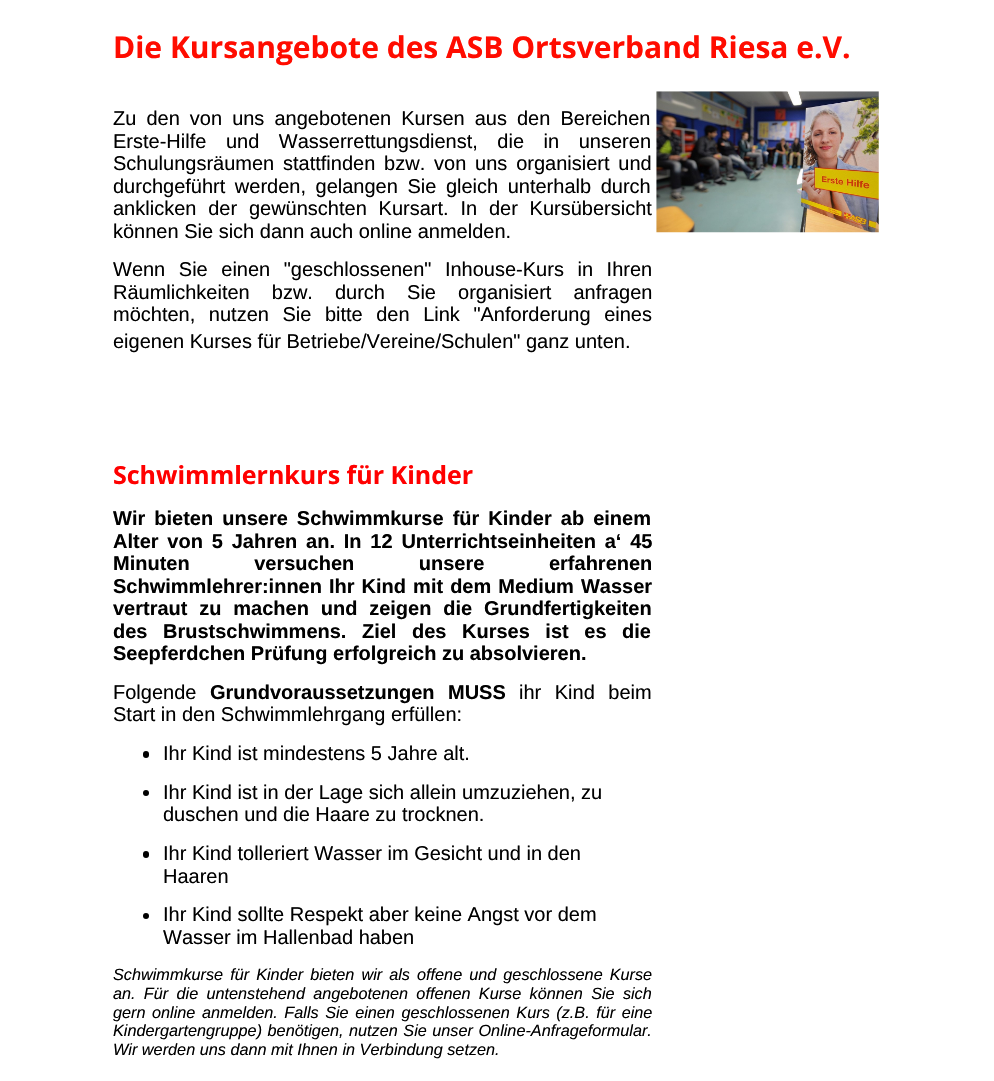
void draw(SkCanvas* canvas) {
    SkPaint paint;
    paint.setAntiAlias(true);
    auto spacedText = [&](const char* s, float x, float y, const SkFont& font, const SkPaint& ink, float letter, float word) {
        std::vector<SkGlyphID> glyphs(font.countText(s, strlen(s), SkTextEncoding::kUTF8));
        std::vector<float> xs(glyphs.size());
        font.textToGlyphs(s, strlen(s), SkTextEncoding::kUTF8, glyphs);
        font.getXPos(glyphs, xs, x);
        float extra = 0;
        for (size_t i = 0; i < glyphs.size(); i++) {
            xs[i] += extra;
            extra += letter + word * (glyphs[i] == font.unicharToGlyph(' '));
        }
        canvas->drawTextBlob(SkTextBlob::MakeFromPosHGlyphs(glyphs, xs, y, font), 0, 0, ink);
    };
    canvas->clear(0xFFFFFFFF);
    SkFont font1(fontMgr->matchFamilyStyle("Open Sans", SkFontStyle::Bold()), 30);
    font1.setSubpixel(true);
    paint.setColor(0xFFFF0C00);
    canvas->drawString("Die Kursangebote des ASB Ortsverband Riesa e.V.", 113, 58, font1, paint);
    SkFont font2(fontMgr->matchFamilyStyle("Liberation Sans", SkFontStyle::Normal()), 20);
    font2.setSubpixel(true);
    paint.setColor(0xFF000000);
    spacedText("Zu den von uns angebotenen Kursen aus den Bereichen", 113, 125, font2, paint, 0, 4.5f);
    spacedText("Erste-Hilfe und Wasserrettungsdienst, die in unseren", 113, 148, font2, paint, 0, 14);
    spacedText("Schulungsräumen stattfinden bzw. von uns organisiert und", 113, 170, font2, paint, 0, 3.25f);
    spacedText("durchgeführt werden, gelangen Sie gleich unterhalb durch", 113, 193, font2, paint, 0, 4);
    spacedText("anklicken der gewünschten Kursart. In der Kursübersicht", 113, 215, font2, paint, 0, 6.25f);
    canvas->drawString("können Sie sich dann auch online anmelden.", 113, 238, font2, paint);
    spacedText("Wenn Sie einen \"geschlossenen\" Inhouse-Kurs in Ihren", 113, 276, font2, paint, 0, 8);
    spacedText("Räumlichkeiten bzw. durch Sie organisiert anfragen", 113, 299, font2, paint, 0, 16.5f);
    spacedText("möchten, nutzen Sie bitte den Link \"Anforderung eines", 113, 321, font2, paint, 0, 8);
    canvas->drawString("eigenen Kurses für Betriebe/Vereine/Schulen\" ganz unten.", 113, 348, font2, paint);
    canvas->drawImageRect(SkImages::DeferredFromEncodedData(SkData::MakeFromFileName("img1.png")), SkRect::MakeXYWH(656, 91, 223, 142), SkSamplingOptions());
    SkFont font3(fontMgr->matchFamilyStyle("Open Sans", SkFontStyle::Bold()), 25);
    font3.setSubpixel(true);
    paint.setColor(0xFFFF0000);
    canvas->drawString("Schwimmlernkurs für Kinder", 113, 484, font3, paint);
    SkFont font4(fontMgr->matchFamilyStyle("Liberation Sans", SkFontStyle::Bold()), 20);
    font4.setSubpixel(true);
    paint.setColor(0xFF000000);
    spacedText("Wir bieten unsere Schwimmkurse für Kinder ab einem", 113, 525, font4, paint, 0, 3.5f);
    spacedText("Alter von 5 Jahren an. In 12 Unterrichtseinheiten a‘ 45", 113, 548, font4, paint, 0, 3.25f);
    spacedText("Minuten versuchen unsere erfahrenen", 113, 570, font4, paint, 0, 59);
    spacedText("Schwimmlehrer:innen Ihr Kind mit dem Medium Wasser", 113, 593, font4, paint, 0, 1.5f);
    spacedText("vertraut zu machen und zeigen die Grundfertigkeiten", 113, 615, font4, paint, 0, 6.25f);
    spacedText("des Brustschwimmens. Ziel des Kurses ist es die", 113, 638, font4, paint, 0, 10);
    canvas->drawString("Seepferdchen Prüfung erfolgreich zu absolvieren.", 113, 660, font4, paint);
    canvas->drawString("Folgende", 113, 699, font2, paint);
    canvas->drawString("Grundvoraussetzungen", 210, 699, font4, paint);
    canvas->drawString("MUSS", 448, 699, font4, paint);
    spacedText("ihr Kind beim", 519, 699, font2, paint, 0, 8);
    canvas->drawString("Start in den Schwimmlehrgang erfüllen:", 113, 721, font2, paint);
    canvas->drawRoundRect(SkRect::MakeXYWH(143, 751, 6, 7), 3, 3, paint);
    canvas->drawString("Ihr Kind ist mindestens 5 Jahre alt.", 163, 760, font2, paint);
    canvas->drawCircle(146, 793, 3, paint);
    canvas->drawString("Ihr Kind ist in der Lage sich allein umzuziehen, zu", 163, 799, font2, paint);
    canvas->drawString("duschen und die Haare zu trocknen.", 163, 821, font2, paint);
    canvas->drawRoundRect(SkRect::MakeXYWH(143, 851, 6, 7), 3, 3, paint);
    canvas->drawString("Ihr Kind tolleriert Wasser im Gesicht und in den", 163, 860, font2, paint);
    canvas->drawString("Haaren", 163, 883, font2, paint);
    canvas->drawCircle(146, 916, 3, paint);
    canvas->drawString("Ihr Kind sollte Respekt aber keine Angst vor dem", 163, 921, font2, paint);
    canvas->drawString("Wasser im Hallenbad haben", 163, 944, font2, paint);
    SkFont font5(fontMgr->matchFamilyStyle("Liberation Sans", SkFontStyle::Italic()), 16.25f);
    font5.setSubpixel(true);
    spacedText("Schwimmkurse für Kinder bieten wir als offene und geschlossene Kurse", 113, 980, font5, paint, 0, 2.5f);
    spacedText("an. Für die untenstehend angebotenen offenen Kurse können Sie sich", 113, 999, font5, paint, 0, 3.75f);
    spacedText("gern online anmelden. Falls Sie einen geschlossenen Kurs (z.B. für eine", 113, 1018, font5, paint, 0, 2);
    spacedText("Kindergartengruppe) benötigen, nutzen Sie unser Online-Anfrageformular.", 113, 1036, font5, paint, 0, 1);
    canvas->drawString("Wir werden uns dann mit Ihnen in Verbindung setzen.", 113, 1055, font5, paint);
}
